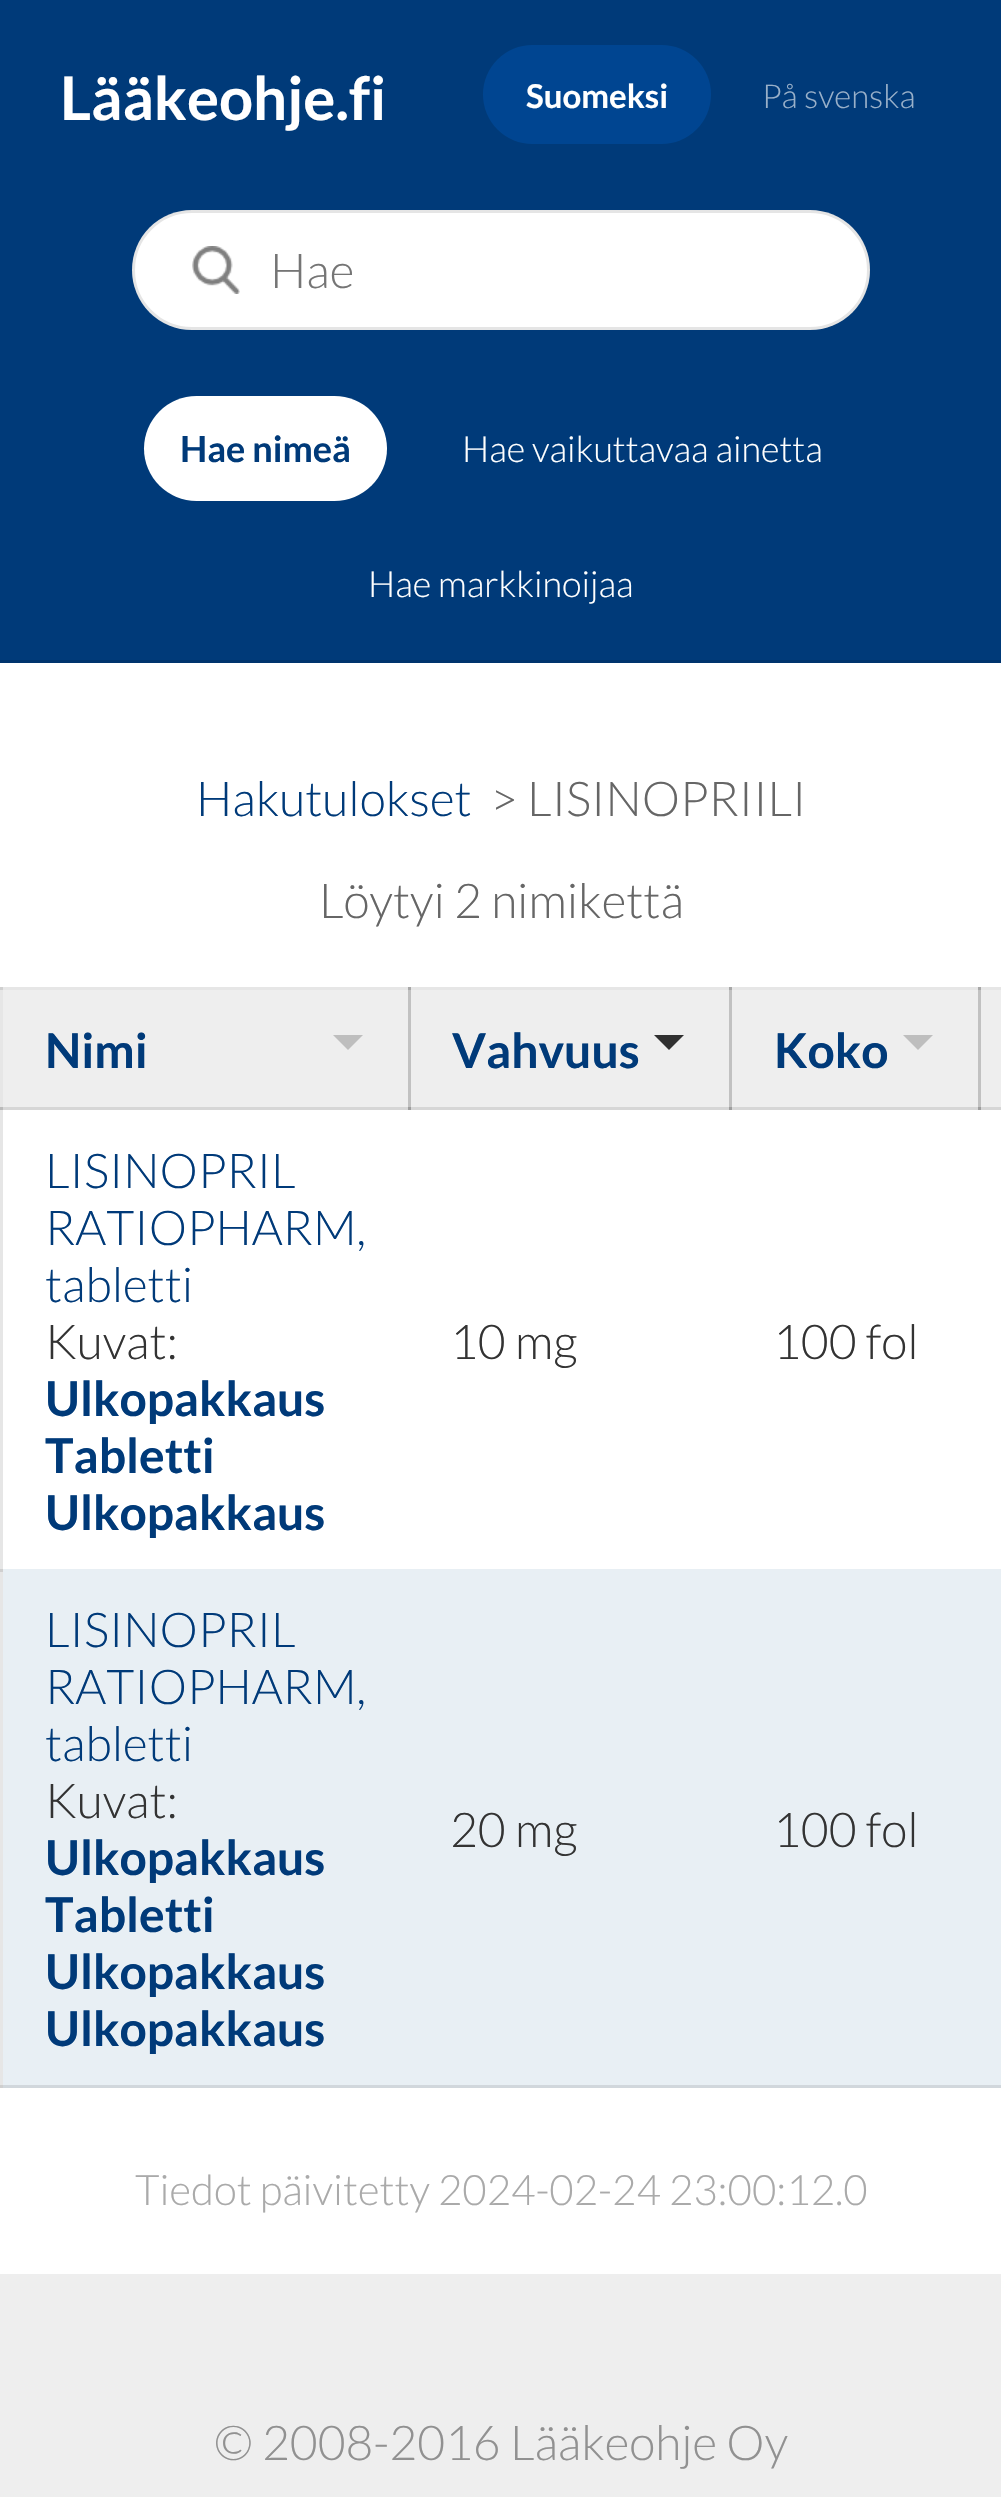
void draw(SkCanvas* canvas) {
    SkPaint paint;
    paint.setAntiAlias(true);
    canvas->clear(0xFFEEEEEE);
    paint.setColor(0xFF003A79);
    canvas->drawRect(SkRect::MakeXYWH(0, 0, 1001, 660), paint);
    paint.setColor(0xFF00346D);
    canvas->drawRect(SkRect::MakeXYWH(0, 660, 1001, 3), paint);
    SkFont font1(fontMgr->matchFamilyStyle("Lato", SkFontStyle::Bold()), 60);
    font1.setSubpixel(true);
    paint.setColor(0xFFFFFFFF);
    canvas->drawString("Lääkeohje.fi", 60, 120, font1, paint);
    paint.setColor(0xFF004591);
    canvas->drawRoundRect(SkRect::MakeXYWH(483, 45, 228, 99), 49.5f, 49.5f, paint);
    SkFont font2(fontMgr->matchFamilyStyle("Lato", SkFontStyle::Bold()), 33);
    font2.setSubpixel(true);
    paint.setColor(0xFFFFFFFF);
    canvas->drawString("Suomeksi", 526, 108, font2, paint);
    SkFont font3(fontMgr->matchFamilyStyle("Lato", SkFontStyle(300, SkFontStyle::kNormal_Width, SkFontStyle::kUpright_Slant)), 33);
    font3.setSubpixel(true);
    paint.setColor(0xFF99B0C9);
    canvas->drawString("På svenska", 762, 108, font3, paint);
    paint.setColor(0xFFFFFFFF);
    canvas->drawRoundRect(SkRect::MakeXYWH(132, 210, 738, 120), 60, 60, paint);
    canvas->drawImageRect(SkImages::DeferredFromEncodedData(SkData::MakeFromFileName("img1.png")), SkRect::MakeXYWH(192, 246, 48, 48), SkSamplingOptions());
    paint.setStyle(SkPaint::kStroke_Style);
    paint.setStrokeWidth(3);
    paint.setColor(0x1A000000);
    canvas->drawRoundRect(SkRect::MakeXYWH(133.5f, 211.5f, 735, 117), 58.5f, 58.5f, paint);
    SkFont font4(fontMgr->matchFamilyStyle("Lato", SkFontStyle(300, SkFontStyle::kNormal_Width, SkFontStyle::kUpright_Slant)), 48);
    font4.setSubpixel(true);
    paint.setStyle(SkPaint::kFill_Style);
    paint.setColor(0xFF757575);
    canvas->drawString("Hae", 270, 288, font4, paint);
    paint.setColor(0xFFFFFFFF);
    canvas->drawRoundRect(SkRect::MakeXYWH(144, 396, 243, 105), 52.5f, 52.5f, paint);
    SkFont font5(fontMgr->matchFamilyStyle("Lato", SkFontStyle::Bold()), 36);
    font5.setSubpixel(true);
    paint.setColor(0xFF003A79);
    canvas->drawString("Hae nimeä", 180, 462, font5, paint);
    SkFont font6(fontMgr->matchFamilyStyle("Lato", SkFontStyle(300, SkFontStyle::kNormal_Width, SkFontStyle::kUpright_Slant)), 36);
    font6.setSubpixel(true);
    paint.setColor(0xFFFFFFFF);
    canvas->drawString("Hae vaikuttavaa ainetta", 462, 462, font6, paint);
    canvas->drawString("Hae markkinoijaa", 368, 597, font6, paint);
    canvas->drawRect(SkRect::MakeXYWH(0, 663, 1001, 1611), paint);
    paint.setColor(0xFFE6E6E6);
    canvas->drawRect(SkRect::MakeXYWH(0, 987, 3, 1101), paint);
    canvas->drawRect(SkRect::MakeXYWH(0, 987, 1001, 3), paint);
    paint.setColor(0xFFCFCFCF);
    canvas->drawRect(SkRect::MakeXYWH(0, 987, 3, 3), paint);
    paint.setColor(0xFFA7A7A7);
    canvas->drawRect(SkRect::MakeXYWH(408, 987, 3, 3), paint);
    canvas->drawRect(SkRect::MakeXYWH(729, 987, 3, 3), paint);
    paint.setColor(0xFFBABABA);
    canvas->drawRect(SkRect::MakeXYWH(0, 1107, 3, 3), paint);
    paint.setColor(0xFFCFCFCF);
    canvas->drawRect(SkRect::MakeXYWH(0, 1569, 3, 3), paint);
    canvas->drawRect(SkRect::MakeXYWH(0, 2085, 3, 3), paint);
    paint.setColor(0xFF003A79);
    canvas->drawString("Hakutulokset", 196, 816, font4, paint);
    paint.setColor(0xFF666666);
    canvas->drawString("> LISINOPRIILI", 490, 816, font4, paint);
    canvas->drawString("Löytyi 2 nimikettä", 319, 918, font4, paint);
    paint.setColor(0xFFEEEEEE);
    canvas->drawRect(SkRect::MakeXYWH(3, 990, 998, 117), paint);
    paint.setColor(0xFFD6D6D6);
    canvas->drawRect(SkRect::MakeXYWH(3, 1107, 408, 3), paint);
    paint.setColor(0xFFC1C1C1);
    canvas->drawRect(SkRect::MakeXYWH(408, 990, 3, 120), paint);
    paint.setColor(0xFFD6D6D6);
    canvas->drawRect(SkRect::MakeXYWH(408, 1107, 324, 3), paint);
    paint.setColor(0xFF9D9D9D);
    canvas->drawRect(SkRect::MakeXYWH(408, 1107, 3, 3), paint);
    paint.setColor(0xFFC1C1C1);
    canvas->drawRect(SkRect::MakeXYWH(729, 990, 3, 120), paint);
    paint.setColor(0xFFD6D6D6);
    canvas->drawRect(SkRect::MakeXYWH(729, 1107, 252, 3), paint);
    paint.setColor(0xFF9D9D9D);
    canvas->drawRect(SkRect::MakeXYWH(729, 1107, 3, 3), paint);
    paint.setColor(0xFFC1C1C1);
    canvas->drawRect(SkRect::MakeXYWH(978, 990, 3, 120), paint);
    SkFont font7(fontMgr->matchFamilyStyle("Lato", SkFontStyle::Bold()), 48);
    font7.setSubpixel(true);
    paint.setColor(0xFF003A79);
    canvas->drawString("Nimi", 45, 1068, font7, paint);
    paint.setColor(0xFFBEBEBE);
    canvas->drawPath(SkPathBuilder().moveTo(333, 1035).lineTo(363, 1035).lineTo(348, 1050).close().detach(), paint);
    paint.setColor(0xFF003A79);
    canvas->drawString("Vahvuus", 452, 1068, font7, paint);
    paint.setColor(0xFF303030);
    canvas->drawPath(SkPathBuilder().moveTo(654, 1035).lineTo(684, 1035).lineTo(669, 1050).close().detach(), paint);
    paint.setColor(0xFF003A79);
    canvas->drawString("Koko", 774, 1068, font7, paint);
    paint.setColor(0xFFBEBEBE);
    canvas->drawPath(SkPathBuilder().moveTo(903, 1035).lineTo(933, 1035).lineTo(918, 1050).close().detach(), paint);
    paint.setColor(0xFFA7A7A7);
    canvas->drawRect(SkRect::MakeXYWH(978, 987, 3, 3), paint);
    paint.setColor(0xFFD6D6D6);
    canvas->drawRect(SkRect::MakeXYWH(978, 1107, 23, 3), paint);
    paint.setColor(0xFF9D9D9D);
    canvas->drawRect(SkRect::MakeXYWH(978, 1107, 3, 3), paint);
    paint.setColor(0xFF003A79);
    canvas->drawString("LISINOPRIL", 45, 1188, font4, paint);
    canvas->drawString("RATIOPHARM,", 45, 1245, font4, paint);
    canvas->drawString("tabletti", 45, 1302, font4, paint);
    paint.setColor(0xFF333333);
    canvas->drawString("Kuvat:", 45, 1359, font4, paint);
    paint.setColor(0xFF003A79);
    canvas->drawString("Ulkopakkaus", 45, 1416, font7, paint);
    canvas->drawString("Tabletti", 45, 1473, font7, paint);
    canvas->drawString("Ulkopakkaus", 45, 1530, font7, paint);
    paint.setColor(0xFF333333);
    canvas->drawString("10 mg", 450, 1359, font4, paint);
    canvas->drawString("100 fol", 773, 1359, font4, paint);
    paint.setColor(0xFFE8EFF4);
    canvas->drawRect(SkRect::MakeXYWH(3, 1569, 998, 516), paint);
    paint.setColor(0xFFD1D7DC);
    canvas->drawRect(SkRect::MakeXYWH(3, 2085, 998, 3), paint);
    paint.setColor(0xFF003A79);
    canvas->drawString("LISINOPRIL", 45, 1647, font4, paint);
    canvas->drawString("RATIOPHARM,", 45, 1704, font4, paint);
    canvas->drawString("tabletti", 45, 1761, font4, paint);
    paint.setColor(0xFF333333);
    canvas->drawString("Kuvat:", 45, 1818, font4, paint);
    paint.setColor(0xFF003A79);
    canvas->drawString("Ulkopakkaus", 45, 1875, font7, paint);
    canvas->drawString("Tabletti", 45, 1932, font7, paint);
    canvas->drawString("Ulkopakkaus", 45, 1989, font7, paint);
    canvas->drawString("Ulkopakkaus", 45, 2046, font7, paint);
    paint.setColor(0xFF333333);
    canvas->drawString("20 mg", 450, 1847, font4, paint);
    canvas->drawString("100 fol", 773, 1847, font4, paint);
    SkFont font8(fontMgr->matchFamilyStyle("Lato", SkFontStyle(300, SkFontStyle::kNormal_Width, SkFontStyle::kUpright_Slant)), 42);
    font8.setSubpixel(true);
    paint.setColor(0xFFAAAAAA);
    canvas->drawString("Tiedot päivitetty 2024-02-24 23:00:12.0", 135, 2205, font8, paint);
    paint.setColor(0xFF919191);
    canvas->drawString("© 2008-2016 Lääkeohje Oy", 214, 2460, font4, paint);
}
